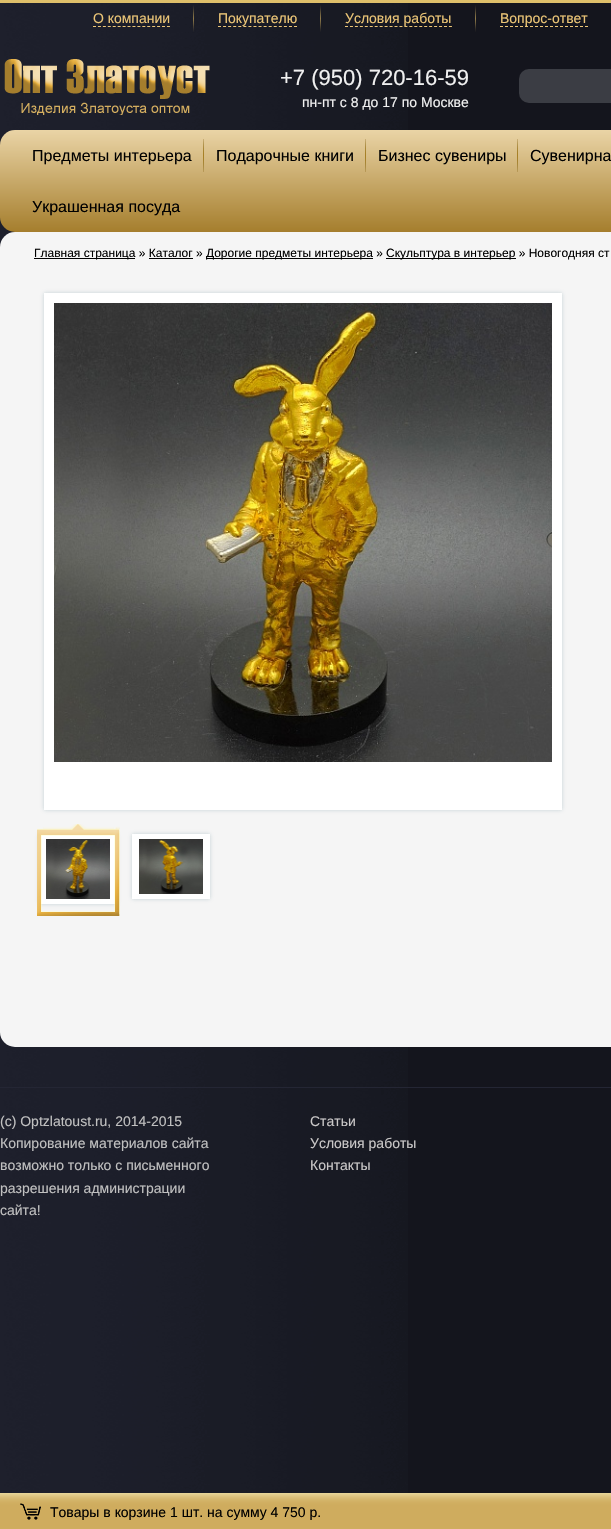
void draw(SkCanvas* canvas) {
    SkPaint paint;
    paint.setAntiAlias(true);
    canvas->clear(0xFF14151D);
    canvas->drawImageRect(SkImages::DeferredFromEncodedData(SkData::MakeFromFileName("img1.png")), SkRect::MakeXYWH(0, 3, 408, 1490), SkSamplingOptions());
    paint.setColor(0xFFDEBF6A);
    canvas->drawRect(SkRect::MakeXYWH(0, 0, 611, 3), paint);
    canvas->drawImageRect(SkImages::DeferredFromEncodedData(SkData::MakeFromFileName("img2.png")), SkRect::MakeXYWH(193, 5, 1, 27), SkSamplingOptions());
    SkFont font1(fontMgr->matchFamilyStyle("Liberation Sans", SkFontStyle::Normal()), 14);
    font1.setSubpixel(true);
    paint.setColor(0xFFECC677);
    canvas->drawString("О компании", 93, 23, font1, paint);
    paint.setStyle(SkPaint::kStroke_Style);
    paint.setStrokeWidth(1);
    paint.setPathEffect(SkDashPathEffect::Make({{3, 1.93f}}, 0));
    canvas->drawPath(SkPathBuilder().moveTo(93, 26.5f).lineTo(170, 26.5f).detach(), paint);
    paint.setPathEffect(nullptr);
    canvas->drawImageRect(SkImages::DeferredFromEncodedData(SkData::MakeFromFileName("img3.png")), SkRect::MakeXYWH(320, 5, 1, 27), SkSamplingOptions());
    paint.setStyle(SkPaint::kFill_Style);
    canvas->drawString("Покупателю", 218, 23, font1, paint);
    paint.setStyle(SkPaint::kStroke_Style);
    paint.setPathEffect(SkDashPathEffect::Make({{3, 2.07f}}, 0));
    canvas->drawPath(SkPathBuilder().moveTo(218, 26.5f).lineTo(297, 26.5f).detach(), paint);
    paint.setPathEffect(nullptr);
    canvas->drawImageRect(SkImages::DeferredFromEncodedData(SkData::MakeFromFileName("img4.png")), SkRect::MakeXYWH(475, 5, 1, 27), SkSamplingOptions());
    paint.setStyle(SkPaint::kFill_Style);
    canvas->drawString("Условия работы", 345, 23, font1, paint);
    paint.setStyle(SkPaint::kStroke_Style);
    paint.setPathEffect(SkDashPathEffect::Make({{3, 1.95f}}, 0));
    canvas->drawPath(SkPathBuilder().moveTo(345, 26.5f).lineTo(452, 26.5f).detach(), paint);
    paint.setPathEffect(nullptr);
    paint.setStyle(SkPaint::kFill_Style);
    canvas->drawString("Вопрос-ответ", 500, 23, font1, paint);
    paint.setStyle(SkPaint::kStroke_Style);
    paint.setPathEffect(SkDashPathEffect::Make({{3, 2}}, 0));
    canvas->drawPath(SkPathBuilder().moveTo(500, 26.5f).lineTo(588, 26.5f).detach(), paint);
    paint.setPathEffect(nullptr);
    canvas->drawImageRect(SkImages::DeferredFromEncodedData(SkData::MakeFromFileName("img5.png")), SkRect::MakeXYWH(4, 59, 206, 56), SkSamplingOptions());
    SkFont font2(fontMgr->matchFamilyStyle("Liberation Sans", SkFontStyle::Normal()), 22);
    font2.setSubpixel(true);
    paint.setStyle(SkPaint::kFill_Style);
    paint.setColor(0xFFF0F0F0);
    canvas->drawString("+7 (950) 720-16-59", 280, 85, font2, paint);
    canvas->drawString("пн-пт с 8 до 17 по Москве", 302, 107, font1, paint);
    paint.setColor(0xFF3B3D44);
    canvas->drawRoundRect(SkRect::MakeXYWH(519, 69, 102, 34), 10, 10, paint);
    {
        const SkColor colors[] = {0xFFEAD4A6, 0xFFA57E2D};
        const float stops[] = {0, 1};
        const SkPoint ends[] = {{500, 130}, {500, 232}};
        paint.setShader(SkGradientShader::MakeLinear(ends, colors, stops, 2, SkTileMode::kClamp));
        paint.setAlpha(255);
    }
    canvas->drawRoundRect(SkRect::MakeXYWH(0, 130, 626, 102), 15, 15, paint);
    canvas->drawImageRect(SkImages::DeferredFromEncodedData(SkData::MakeFromFileName("img6.png")), SkRect::MakeXYWH(203, 139, 1, 33), SkSamplingOptions());
    SkFont font3(fontMgr->matchFamilyStyle("Liberation Sans", SkFontStyle::Normal()), 16);
    font3.setSubpixel(true);
    paint.setShader(nullptr);
    paint.setColor(0xFF000000);
    canvas->drawString("Предметы интерьера", 32, 161, font3, paint);
    canvas->drawImageRect(SkImages::DeferredFromEncodedData(SkData::MakeFromFileName("img6.png")), SkRect::MakeXYWH(365, 139, 1, 33), SkSamplingOptions());
    canvas->drawString("Подарочные книги", 216, 161, font3, paint);
    canvas->drawImageRect(SkImages::DeferredFromEncodedData(SkData::MakeFromFileName("img6.png")), SkRect::MakeXYWH(517, 139, 1, 33), SkSamplingOptions());
    canvas->drawString("Бизнес сувениры", 378, 161, font3, paint);
    canvas->drawString("Сувенирна", 530, 161, font3, paint);
    canvas->drawString("Украшенная посуда", 32, 212, font3, paint);
    paint.setColor(0xFFF5F5F5);
    canvas->drawRoundRect(SkRect::MakeXYWH(0, 232, 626, 815), 15, 15, paint);
    paint.setColor(0xFF000000);
    canvas->drawRect(SkRect::MakeXYWH(34, 258, 101, 1), paint);
    SkFont font4(fontMgr->matchFamilyStyle("Liberation Sans", SkFontStyle::Normal()), 12);
    font4.setSubpixel(true);
    canvas->drawString("Главная страница » Каталог »", 34, 257, font4, paint);
    canvas->drawRect(SkRect::MakeXYWH(206, 258, 167, 1), paint);
    canvas->drawString("Дорогие предметы интерьера »", 206, 257, font4, paint);
    canvas->drawRect(SkRect::MakeXYWH(386, 258, 130, 1), paint);
    canvas->drawString("Скульптура в интерьер » Новогодняя ст", 386, 257, font4, paint);
    canvas->drawRect(SkRect::MakeXYWH(149, 258, 44, 1), paint);
    paint.setColor(0x667B98A5);
    paint.setMaskFilter(SkMaskFilter::MakeBlur(kNormal_SkBlurStyle, 2));
    canvas->drawRect(SkRect::MakeXYWH(44, 293, 518, 517), paint);
    paint.setMaskFilter(nullptr);
    paint.setColor(0xFFFFFFFF);
    canvas->drawRect(SkRect::MakeXYWH(44, 293, 518, 517), paint);
    canvas->drawImageRect(SkImages::DeferredFromEncodedData(SkData::MakeFromFileName("img7.png")), SkRect::MakeXYWH(54, 303, 498, 459), SkSamplingOptions());
    paint.setColor(0x667B98A5);
    paint.setMaskFilter(SkMaskFilter::MakeBlur(kNormal_SkBlurStyle, 2));
    canvas->drawRect(SkRect::MakeXYWH(39, 834, 78, 70), paint);
    paint.setMaskFilter(nullptr);
    paint.setColor(0xFFFFFFFF);
    canvas->drawRect(SkRect::MakeXYWH(41, 835, 74, 69), paint);
    canvas->drawImageRect(SkImages::DeferredFromEncodedData(SkData::MakeFromFileName("img9.png")), SkRect::MakeXYWH(46, 839, 64, 60), SkSamplingOptions());
    canvas->drawImageRect(SkImages::DeferredFromEncodedData(SkData::MakeFromFileName("img8.png")), SkRect::MakeXYWH(37, 824, 83, 92), SkSamplingOptions());
    paint.setColor(0x667B98A5);
    paint.setMaskFilter(SkMaskFilter::MakeBlur(kNormal_SkBlurStyle, 2));
    canvas->drawRect(SkRect::MakeXYWH(132, 834, 78, 65), paint);
    paint.setMaskFilter(nullptr);
    paint.setColor(0xFFFFFFFF);
    canvas->drawRect(SkRect::MakeXYWH(132, 834, 78, 65), paint);
    canvas->drawImageRect(SkImages::DeferredFromEncodedData(SkData::MakeFromFileName("img10.png")), SkRect::MakeXYWH(139, 839, 64, 55), SkSamplingOptions());
    paint.setColor(0xFF242634);
    canvas->drawRect(SkRect::MakeXYWH(0, 1087, 611, 1), paint);
    paint.setColor(0xFFC0C0C0);
    canvas->drawString("(с) Optzlatoust.ru, 2014-2015", 0, 1126, font1, paint);
    canvas->drawString("Копирование материалов сайта", 0, 1148, font1, paint);
    canvas->drawString("возможно только с письменного", 0, 1170, font1, paint);
    canvas->drawString("разрешения администрации", 0, 1193, font1, paint);
    canvas->drawString("сайта!", 0, 1215, font1, paint);
    paint.setColor(0xFFCAC8C8);
    canvas->drawString("Статьи", 310, 1126, font1, paint);
    canvas->drawString("Условия работы", 310, 1148, font1, paint);
    canvas->drawString("Контакты", 310, 1170, font1, paint);
    canvas->drawImageRect(SkImages::DeferredFromEncodedData(SkData::MakeFromFileName("img11.png")), SkRect::MakeXYWH(0, 1493, 611, 36), SkSamplingOptions());
    canvas->drawImageRect(SkImages::DeferredFromEncodedData(SkData::MakeFromFileName("img12.png")), SkRect::MakeXYWH(20, 1503, 21, 17), SkSamplingOptions());
    paint.setColor(0xFF000000);
    canvas->drawString("Товары в корзине 1 шт. на сумму 4 750 р.", 50, 1517, font1, paint);
}
